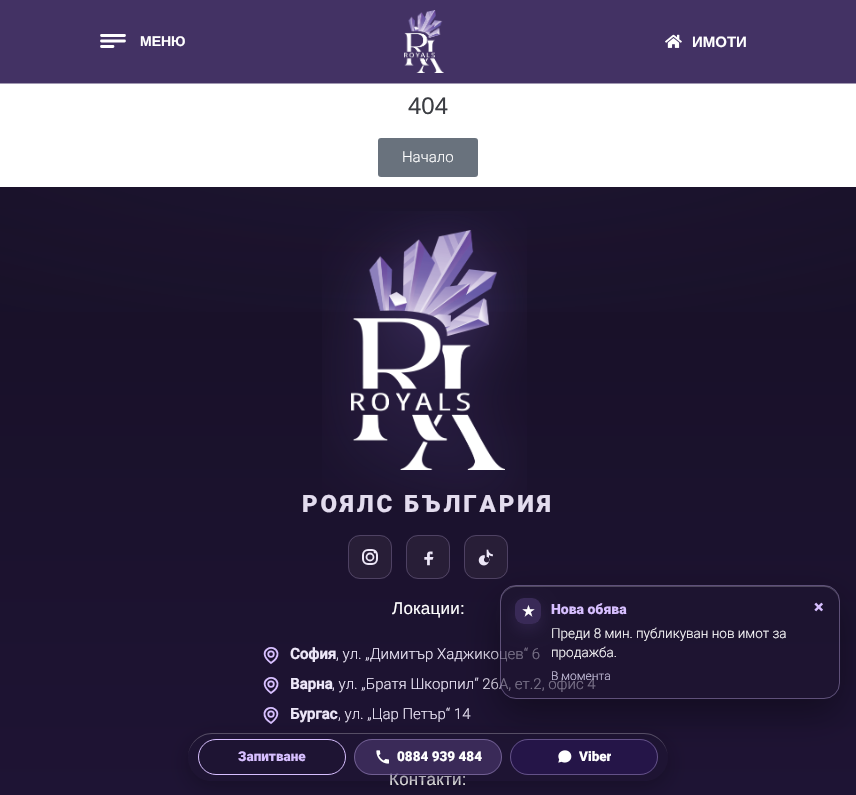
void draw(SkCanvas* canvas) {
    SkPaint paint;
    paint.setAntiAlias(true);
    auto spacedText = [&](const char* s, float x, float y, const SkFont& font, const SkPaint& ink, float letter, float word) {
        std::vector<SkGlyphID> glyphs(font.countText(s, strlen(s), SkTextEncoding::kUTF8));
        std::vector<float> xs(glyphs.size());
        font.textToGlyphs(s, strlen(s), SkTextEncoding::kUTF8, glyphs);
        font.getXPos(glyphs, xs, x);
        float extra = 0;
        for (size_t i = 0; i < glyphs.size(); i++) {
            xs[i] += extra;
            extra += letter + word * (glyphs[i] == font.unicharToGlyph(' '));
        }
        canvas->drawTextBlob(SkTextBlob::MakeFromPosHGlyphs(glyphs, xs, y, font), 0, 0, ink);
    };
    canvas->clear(0xFFFFFFFF);
    paint.setColor(0xFF433264);
    canvas->drawRect(SkRect::MakeXYWH(0, 0, 856, 83), paint);
    paint.setColor(0xFFA199B2);
    canvas->drawRect(SkRect::MakeXYWH(0, 83, 856, 1), paint);
    paint.setStyle(SkPaint::kStroke_Style);
    paint.setStrokeWidth(2.8f);
    paint.setStrokeCap(SkPaint::kRound_Cap);
    paint.setStrokeJoin(SkPaint::kRound_Join);
    paint.setColor(0xFFFFFFFF);
    canvas->drawPath(SkPathBuilder().moveTo(101.5f, 41).lineTo(124.5f, 41).moveTo(101.5f, 35.5f).lineTo(124.5f, 35.5f).moveTo(101.5f, 46.5f).lineTo(113, 46.5f).detach(), paint);
    SkFont font1(fontMgr->matchFamilyStyle("Liberation Sans", SkFontStyle::Bold()), 14);
    font1.setSubpixel(true);
    paint.setStyle(SkPaint::kFill_Style);
    canvas->drawString("МЕНЮ", 140, 46, font1, paint);
    canvas->drawImageRect(SkImages::DeferredFromEncodedData(SkData::MakeFromFileName("img1.png")), SkRect::MakeXYWH(404, 10, 40, 63), SkSamplingOptions());
    canvas->drawImageRect(SkImages::DeferredFromEncodedData(SkData::MakeFromFileName("img2.png")), SkRect::MakeXYWH(665, 34, 17, 14), SkSamplingOptions());
    SkFont font2(fontMgr->matchFamilyStyle("Liberation Sans", SkFontStyle::Bold()), 15);
    font2.setSubpixel(true);
    canvas->drawString("ИМОТИ", 692, 47, font2, paint);
    SkFont font3(fontMgr->matchFamilyStyle("Liberation Sans", SkFontStyle::Normal()), 24);
    font3.setSubpixel(true);
    paint.setColor(0xFF3B3D42);
    canvas->drawString("404", 408, 114, font3, paint);
    paint.setColor(0xFF69727D);
    canvas->drawRoundRect(SkRect::MakeXYWH(378, 138, 100, 39), 3, 3, paint);
    SkFont font4(fontMgr->matchFamilyStyle("Roboto", SkFontStyle(300, SkFontStyle::kNormal_Width, SkFontStyle::kUpright_Slant)), 15);
    font4.setSubpixel(true);
    paint.setColor(0xFFFFFFFF);
    canvas->drawString("Начало", 402, 162, font4, paint);
    {
        const SkColor colors[] = {0xFF171026, 0xFF23163D};
        const float stops[] = {0, 1};
        const SkPoint ends[] = {{428, 187}, {428, 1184}};
        paint.setShader(SkGradientShader::MakeLinear(ends, colors, stops, 2, SkTileMode::kClamp));
        paint.setAlpha(255);
    }
    canvas->drawRect(SkRect::MakeXYWH(0, 187, 856, 608), paint);
    {
        const SkColor colors[] = {0x333F2D6A, 0x003F2D6A};
        const float stops[] = {0, 0.7f};
        SkMatrix m = SkMatrix::Translate(428, 67).preScale(1200, 420);
        paint.setShader(SkGradientShader::MakeRadial({0, 0}, 1, colors, stops, 2, SkTileMode::kClamp, 0, &m));
        paint.setAlpha(255);
    }
    canvas->drawRect(SkRect::MakeXYWH(0, 187, 856, 125), paint);
    canvas->drawImageRect(SkImages::DeferredFromEncodedData(SkData::MakeFromFileName("img3.png")), SkRect::MakeXYWH(322, 211, 205, 289), SkSamplingOptions());
    SkFont font5(fontMgr->matchFamilyStyle("Roboto", SkFontStyle(900, SkFontStyle::kNormal_Width, SkFontStyle::kUpright_Slant)), 24);
    font5.setSubpixel(true);
    paint.setShader(nullptr);
    paint.setColor(0xFFE3DCEE);
    spacedText("РОЯЛС БЪЛГАРИЯ", 302, 512, font5, paint, 2.9f, 0);
    paint.setColor(0xFF281E37);
    canvas->drawRoundRect(SkRect::MakeXYWH(348, 535, 44, 44), 12, 12, paint);
    paint.setStyle(SkPaint::kStroke_Style);
    paint.setStrokeWidth(1);
    paint.setStrokeCap(SkPaint::kButt_Cap);
    paint.setStrokeJoin(SkPaint::kMiter_Join);
    paint.setColor(0x38D7BFFF);
    canvas->drawRoundRect(SkRect::MakeXYWH(348.5f, 535.5f, 43, 43), 11.5f, 11.5f, paint);
    paint.setStrokeWidth(2);
    paint.setColor(0xFFEDE7F8);
    canvas->drawRoundRect(SkRect::MakeXYWH(363, 550, 14, 14), 5, 5, paint);
    paint.setStrokeWidth(1.8f);
    canvas->drawCircle(370, 557, 3.5f, paint);
    paint.setStyle(SkPaint::kFill_Style);
    canvas->drawCircle(375, 552, 1.4f, paint);
    paint.setColor(0xFF281E37);
    canvas->drawRoundRect(SkRect::MakeXYWH(406, 535, 44, 44), 12, 12, paint);
    paint.setStyle(SkPaint::kStroke_Style);
    paint.setStrokeWidth(1);
    paint.setColor(0x38D7BFFF);
    canvas->drawRoundRect(SkRect::MakeXYWH(406.5f, 535.5f, 43, 43), 11.5f, 11.5f, paint);
    canvas->drawImageRect(SkImages::DeferredFromEncodedData(SkData::MakeFromFileName("img4.png")), SkRect::MakeXYWH(424, 551, 10, 15), SkSamplingOptions());
    paint.setStyle(SkPaint::kFill_Style);
    paint.setColor(0xFF281E37);
    canvas->drawRoundRect(SkRect::MakeXYWH(464, 535, 44, 44), 12, 12, paint);
    paint.setStyle(SkPaint::kStroke_Style);
    paint.setColor(0x38D7BFFF);
    canvas->drawRoundRect(SkRect::MakeXYWH(464.5f, 535.5f, 43, 43), 11.5f, 11.5f, paint);
    canvas->drawImageRect(SkImages::DeferredFromEncodedData(SkData::MakeFromFileName("img5.png")), SkRect::MakeXYWH(478, 549, 15, 17), SkSamplingOptions());
    SkFont font6(fontMgr->matchFamilyStyle("Liberation Sans", SkFontStyle::Normal()), 17);
    font6.setSubpixel(true);
    paint.setStyle(SkPaint::kFill_Style);
    paint.setColor(0xFFFFFFFF);
    spacedText("Локации:", 392, 614, font6, paint, 0.25f, 0);
    paint.setStyle(SkPaint::kStroke_Style);
    paint.setStrokeWidth(1.8f);
    paint.setColor(0xFFD7BFFF);
    canvas->drawPath(SkPathBuilder().moveTo(271, 663).cubicTo(254.5f, 650.5f, 275, 642, 277.5f, 653).cubicTo(278, 657, 274, 661, 271, 663).close().detach(), paint);
    canvas->drawCircle(271, 654.1f, 2.8f, paint);
    SkFont font7(fontMgr->matchFamilyStyle("Roboto", SkFontStyle::Bold()), 15);
    font7.setSubpixel(true);
    paint.setStyle(SkPaint::kFill_Style);
    paint.setColor(0xFFEDE7F8);
    canvas->drawString("София", 290, 659, font7, paint);
    canvas->drawString(", ул. „Димитър Хаджикоцев“ 6", 336, 659, font4, paint);
    paint.setStyle(SkPaint::kStroke_Style);
    paint.setColor(0xFFD7BFFF);
    canvas->drawPath(SkPathBuilder().moveTo(271, 693).cubicTo(254.5f, 680.5f, 275, 672, 277.5f, 683).cubicTo(278, 687, 274, 691, 271, 693).close().detach(), paint);
    canvas->drawCircle(271, 684.1f, 2.8f, paint);
    paint.setStyle(SkPaint::kFill_Style);
    paint.setColor(0xFFEDE7F8);
    canvas->drawString("Варна", 290, 689, font7, paint);
    canvas->drawString(", ул. „Братя Шкорпил“ 26А, ет.2, офис 4", 332, 689, font4, paint);
    paint.setStyle(SkPaint::kStroke_Style);
    paint.setColor(0xFFD7BFFF);
    canvas->drawPath(SkPathBuilder().moveTo(271, 723).cubicTo(268, 721, 264, 717, 264.5f, 713).cubicTo(267, 702, 287.5f, 710.5f, 271, 723).close().detach(), paint);
    canvas->drawCircle(271, 714.1f, 2.8f, paint);
    paint.setStyle(SkPaint::kFill_Style);
    paint.setColor(0xFFEDE7F8);
    canvas->drawString("Бургас", 290, 719, font7, paint);
    canvas->drawString(", ул. „Цар Петър“ 14", 338, 719, font4, paint);
    paint.setColor(0xFFFFFFFF);
    spacedText("Контакти:", 389, 785, font6, paint, 0.25f, 0);
    canvas->save();
    canvas->clipPath(SkPathBuilder(SkPathFillType::kEvenOdd).moveTo(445, 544).lineTo(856, 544).lineTo(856, 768).lineTo(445, 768).close().moveTo(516, 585).lineTo(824, 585).cubicTo(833, 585, 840, 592, 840, 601).lineTo(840, 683).cubicTo(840, 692, 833, 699, 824, 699).lineTo(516, 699).cubicTo(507, 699, 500, 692, 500, 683).lineTo(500, 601).cubicTo(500, 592, 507, 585, 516, 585).close().detach(), true);
    paint.setColor(0x59000000);
    paint.setMaskFilter(SkMaskFilter::MakeBlur(kNormal_SkBlurStyle, 18));
    canvas->drawRoundRect(SkRect::MakeXYWH(500, 599, 340, 114), 16, 16, paint);
    paint.setMaskFilter(nullptr);
    canvas->restore();
    paint.setColor(0x8C1D1430);
    canvas->drawRoundRect(SkRect::MakeXYWH(500, 585, 340, 114), 16, 16, paint);
    paint.setColor(0xFF4E475D);
    canvas->drawPath(SkPathBuilder().moveTo(516, 587).lineTo(824, 587).cubicTo(832, 587, 839, 594, 839, 602).lineTo(839, 601).cubicTo(839, 593, 832, 586, 824, 586).lineTo(516, 586).cubicTo(508, 586, 501, 593, 501, 601).lineTo(501, 602).cubicTo(501, 594, 508, 587, 516, 587).close().detach(), paint);
    paint.setStyle(SkPaint::kStroke_Style);
    paint.setStrokeWidth(1);
    paint.setColor(0x59D7BFFF);
    canvas->drawRoundRect(SkRect::MakeXYWH(500.5f, 585.5f, 339, 113), 15.5f, 15.5f, paint);
    canvas->save();
    canvas->clipPath(SkPathBuilder(SkPathFillType::kEvenOdd).moveTo(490, 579).lineTo(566, 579).lineTo(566, 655).lineTo(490, 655).close().moveTo(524, 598).lineTo(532, 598).cubicTo(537, 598, 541, 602, 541, 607).lineTo(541, 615).cubicTo(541, 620, 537, 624, 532, 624).lineTo(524, 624).cubicTo(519, 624, 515, 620, 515, 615).lineTo(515, 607).cubicTo(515, 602, 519, 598, 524, 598).close().detach(), true);
    paint.setStyle(SkPaint::kFill_Style);
    paint.setColor(0x73433264);
    paint.setMaskFilter(SkMaskFilter::MakeBlur(kNormal_SkBlurStyle, 8));
    canvas->drawRoundRect(SkRect::MakeXYWH(515, 604, 26, 26), 9, 9, paint);
    paint.setMaskFilter(nullptr);
    canvas->restore();
    paint.setColor(0xBF433264);
    canvas->drawRoundRect(SkRect::MakeXYWH(515, 598, 26, 26), 9, 9, paint);
    SkFont font8(fontMgr->matchFamilyStyle("DejaVu Sans", SkFontStyle::Bold()), 14);
    font8.setSubpixel(true);
    paint.setColor(0xFFFFFFFF);
    canvas->drawString("★", 522, 616, font8, paint);
    SkFont font9(fontMgr->matchFamilyStyle("Roboto", SkFontStyle(900, SkFontStyle::kNormal_Width, SkFontStyle::kUpright_Slant)), 14);
    font9.setSubpixel(true);
    paint.setColor(0xFFD7BFFF);
    canvas->drawString("Нова обява", 551, 614, font9, paint);
    SkFont font10(fontMgr->matchFamilyStyle("Roboto", SkFontStyle(300, SkFontStyle::kNormal_Width, SkFontStyle::kUpright_Slant)), 13.5f);
    font10.setSubpixel(true);
    paint.setColor(0xFFFFFFFF);
    canvas->drawString("Преди 8 мин. публикуван нов имот за", 551, 638, font10, paint);
    canvas->drawString("продажба.", 551, 657, font10, paint);
    SkFont font11(fontMgr->matchFamilyStyle("Roboto", SkFontStyle(300, SkFontStyle::kNormal_Width, SkFontStyle::kUpright_Slant)), 12);
    font11.setSubpixel(true);
    paint.setColor(0xFFCBC5E0);
    canvas->drawString("В момента", 551, 680, font11, paint);
    SkFont font12(fontMgr->matchFamilyStyle("Roboto", SkFontStyle(900, SkFontStyle::kNormal_Width, SkFontStyle::kUpright_Slant)), 18);
    font12.setSubpixel(true);
    paint.setColor(0xFFD7BFFF);
    spacedText("×", 814, 613, font12, paint, 1, 0);
    canvas->save();
    canvas->clipPath(SkPathBuilder(SkPathFillType::kEvenOdd).moveTo(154, 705).lineTo(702, 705).lineTo(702, 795).lineTo(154, 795).close().moveTo(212, 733).lineTo(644, 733).cubicTo(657.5f, 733, 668, 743.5f, 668, 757).cubicTo(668, 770.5f, 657.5f, 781, 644, 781).lineTo(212, 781).cubicTo(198.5f, 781, 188, 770.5f, 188, 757).cubicTo(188, 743.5f, 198.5f, 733, 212, 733).close().detach(), true);
    paint.setColor(0x40000000);
    paint.setMaskFilter(SkMaskFilter::MakeBlur(kNormal_SkBlurStyle, 11));
    canvas->drawRoundRect(SkRect::MakeXYWH(188, 739, 480, 48), 24, 24, paint);
    paint.setMaskFilter(nullptr);
    canvas->restore();
    paint.setColor(0x591D1430);
    canvas->drawRoundRect(SkRect::MakeXYWH(188, 733, 480, 48), 24, 24, paint);
    paint.setColor(0xFF564E65);
    canvas->drawPath(SkPathBuilder().moveTo(212, 734).lineTo(644, 734).cubicTo(657, 734, 668, 745, 668, 758).cubicTo(668, 744, 657, 733, 644, 733).lineTo(212, 733).cubicTo(199, 733, 188, 744, 188, 758).cubicTo(188, 745, 199, 734, 212, 734).close().detach(), paint);
    paint.setStyle(SkPaint::kStroke_Style);
    paint.setColor(0xFFD7BFFF);
    canvas->drawRoundRect(SkRect::MakeXYWH(198.5f, 739.5f, 147, 35), 17.5f, 17.5f, paint);
    SkFont font13(fontMgr->matchFamilyStyle("Roboto", SkFontStyle(900, SkFontStyle::kNormal_Width, SkFontStyle::kUpright_Slant)), 13.5f);
    font13.setSubpixel(true);
    paint.setStyle(SkPaint::kFill_Style);
    canvas->drawString("Запитване", 238, 761, font13, paint);
    paint.setColor(0xBF433264);
    canvas->drawRoundRect(SkRect::MakeXYWH(354, 739, 148, 36), 18, 18, paint);
    paint.setStyle(SkPaint::kStroke_Style);
    paint.setColor(0x59D7BFFF);
    canvas->drawRoundRect(SkRect::MakeXYWH(354.5f, 739.5f, 147, 35), 17.5f, 17.5f, paint);
    canvas->drawImageRect(SkImages::DeferredFromEncodedData(SkData::MakeFromFileName("img6.png")), SkRect::MakeXYWH(376, 750, 13, 14), SkSamplingOptions());
    paint.setStyle(SkPaint::kFill_Style);
    paint.setColor(0xFFFFFFFF);
    canvas->drawString("0884 939 484", 397, 761, font13, paint);
    paint.setColor(0xFF251548);
    canvas->drawRoundRect(SkRect::MakeXYWH(510, 739, 148, 36), 18, 18, paint);
    paint.setStyle(SkPaint::kStroke_Style);
    paint.setColor(0x59D7BFFF);
    canvas->drawRoundRect(SkRect::MakeXYWH(510.5f, 739.5f, 147, 35), 17.5f, 17.5f, paint);
    canvas->drawImageRect(SkImages::DeferredFromEncodedData(SkData::MakeFromFileName("img7.png")), SkRect::MakeXYWH(558, 750, 14, 13), SkSamplingOptions());
    canvas->save();
    canvas->clipRect(SkRect::MakeXYWH(579, 750, 32, 14));
    paint.setStyle(SkPaint::kFill_Style);
    paint.setColor(0xFFFFFFFF);
    canvas->drawString("Viber", 579, 761, font13, paint);
    canvas->restore();
}
